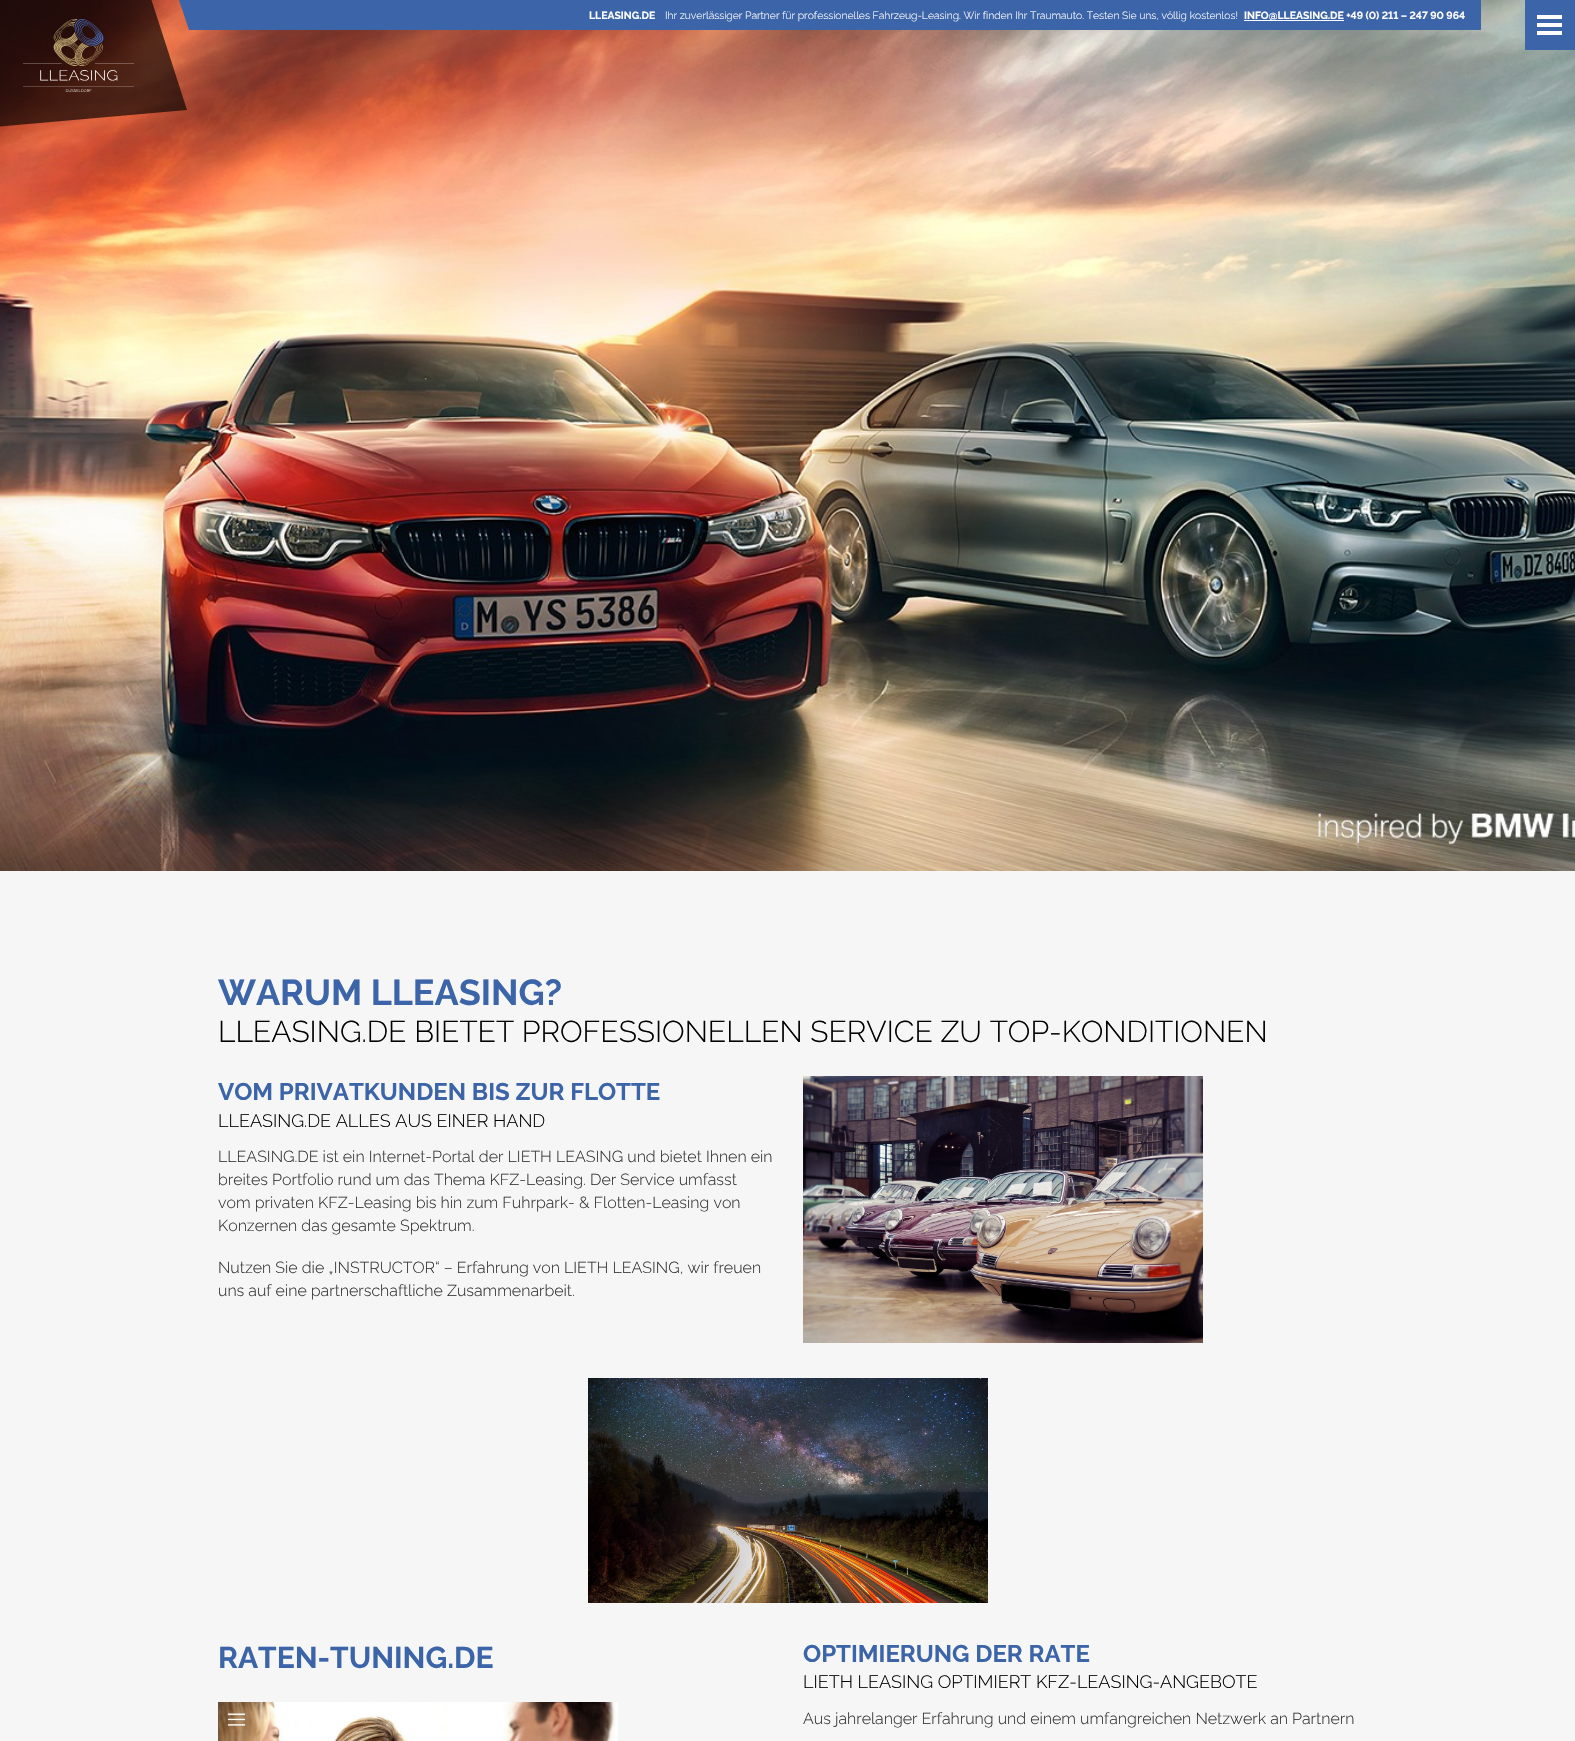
void draw(SkCanvas* canvas) {
    SkPaint paint;
    paint.setAntiAlias(true);
    canvas->clear(0xFFF6F6F6);
    canvas->drawImageRect(SkImages::DeferredFromEncodedData(SkData::MakeFromFileName("img1.png")), SkRect::MakeXYWH(0, 0, 1575, 871), SkSamplingOptions());
    paint.setColor(0xA6000000);
    canvas->drawPath(SkPathBuilder().moveTo(-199, -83).lineTo(116, -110).lineTo(187, 110).lineTo(-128, 138).close().detach(), paint);
    canvas->drawImageRect(SkImages::DeferredFromEncodedData(SkData::MakeFromFileName("img2.png")), SkRect::MakeXYWH(23, 19, 111, 73), SkSamplingOptions());
    paint.setColor(0xFF3C64A8);
    canvas->drawRect(SkRect::MakeXYWH(1471, 0, 10, 30), paint);
    canvas->drawPath(SkPathBuilder().moveTo(179, 0).lineTo(1471, 0).lineTo(1480, 30).lineTo(189, 30).close().detach(), paint);
    SkFont font1(fontMgr->matchFamilyStyle("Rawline", SkFontStyle::Bold()), 10.4f);
    font1.setSubpixel(true);
    paint.setColor(0xFFFFFFFF);
    canvas->drawString("LLEASING.DE", 589, 19, font1, paint);
    SkFont font2(fontMgr->matchFamilyStyle("Rawline", SkFontStyle(300, SkFontStyle::kNormal_Width, SkFontStyle::kUpright_Slant)), 10.4f);
    font2.setSubpixel(true);
    canvas->drawString("Ihr zuverlässiger Partner für professionelles Fahrzeug-Leasing. Wir finden Ihr Traumauto. Testen Sie uns, völlig kostenlos!", 665, 19, font2, paint);
    canvas->drawRect(SkRect::MakeXYWH(1244, 20, 100, 1), paint);
    canvas->drawString("INFO@LLEASING.DE +49 (0) 211 – 247 90 964", 1244, 19, font1, paint);
    paint.setColor(0xFF3C64A8);
    canvas->drawRect(SkRect::MakeXYWH(1525, 0, 50, 50), paint);
    paint.setColor(0xFFFFFFFF);
    canvas->drawRect(SkRect::MakeXYWH(1537, 15, 25, 4), paint);
    canvas->drawRect(SkRect::MakeXYWH(1537, 23, 25, 4), paint);
    canvas->drawRect(SkRect::MakeXYWH(1537, 31, 25, 4), paint);
    SkFont font3(fontMgr->matchFamilyStyle("Rawline", SkFontStyle::Bold()), 36);
    font3.setSubpixel(true);
    paint.setColor(0xFF3C64A8);
    canvas->drawString("WARUM LLEASING?", 218, 1005, font3, paint);
    SkFont font4(fontMgr->matchFamilyStyle("Rawline", SkFontStyle(300, SkFontStyle::kNormal_Width, SkFontStyle::kUpright_Slant)), 30);
    font4.setSubpixel(true);
    paint.setColor(0xFF000000);
    canvas->drawString("LLEASING.DE BIETET PROFESSIONELLEN SERVICE ZU TOP-KONDITIONEN", 218, 1042, font4, paint);
    SkFont font5(fontMgr->matchFamilyStyle("Rawline", SkFontStyle::Bold()), 24);
    font5.setSubpixel(true);
    paint.setColor(0xFF3C64A8);
    canvas->drawString("VOM PRIVATKUNDEN BIS ZUR FLOTTE", 218, 1100, font5, paint);
    SkFont font6(fontMgr->matchFamilyStyle("Rawline", SkFontStyle(300, SkFontStyle::kNormal_Width, SkFontStyle::kUpright_Slant)), 18);
    font6.setSubpixel(true);
    paint.setColor(0xFF000000);
    canvas->drawString("LLEASING.DE ALLES AUS EINER HAND", 218, 1127, font6, paint);
    SkFont font7(fontMgr->matchFamilyStyle("Rawline", SkFontStyle(300, SkFontStyle::kNormal_Width, SkFontStyle::kUpright_Slant)), 16);
    font7.setSubpixel(true);
    paint.setColor(0xFF333333);
    canvas->drawString("LLEASING.DE ist ein Internet-Portal der LIETH LEASING und bietet Ihnen ein", 218, 1162, font7, paint);
    canvas->drawString("breites Portfolio rund um das Thema KFZ-Leasing. Der Service umfasst", 218, 1185, font7, paint);
    canvas->drawString("vom privaten KFZ-Leasing bis hin zum Fuhrpark- & Flotten-Leasing von", 218, 1208, font7, paint);
    canvas->drawString("Konzernen das gesamte Spektrum.", 218, 1231, font7, paint);
    canvas->drawString("Nutzen Sie die „INSTRUCTOR“ – Erfahrung von LIETH LEASING, wir freuen", 218, 1273, font7, paint);
    canvas->drawString("uns auf eine partnerschaftliche Zusammenarbeit.", 218, 1296, font7, paint);
    canvas->drawImageRect(SkImages::DeferredFromEncodedData(SkData::MakeFromFileName("img3.png")), SkRect::MakeXYWH(803, 1076, 400, 267), SkSamplingOptions());
    canvas->drawImageRect(SkImages::DeferredFromEncodedData(SkData::MakeFromFileName("img4.png")), SkRect::MakeXYWH(588, 1378, 400, 225), SkSamplingOptions());
    SkFont font8(fontMgr->matchFamilyStyle("Rawline", SkFontStyle::Bold()), 30);
    font8.setSubpixel(true);
    paint.setColor(0xFF3C64A8);
    canvas->drawString("RATEN-TUNING.DE", 218, 1668, font8, paint);
    canvas->drawImageRect(SkImages::DeferredFromEncodedData(SkData::MakeFromFileName("img5.png")), SkRect::MakeXYWH(218, 1702, 400, 39), SkSamplingOptions());
    canvas->drawString("OPTIMIERUNG DER RATE", 803, 1662, font5, paint);
    paint.setColor(0xFF000000);
    canvas->drawString("LIETH LEASING OPTIMIERT KFZ-LEASING-ANGEBOTE", 803, 1688, font6, paint);
    paint.setColor(0xFF333333);
    canvas->drawString("Aus jahrelanger Erfahrung und einem umfangreichen Netzwerk an Partnern", 803, 1724, font7, paint);
}
